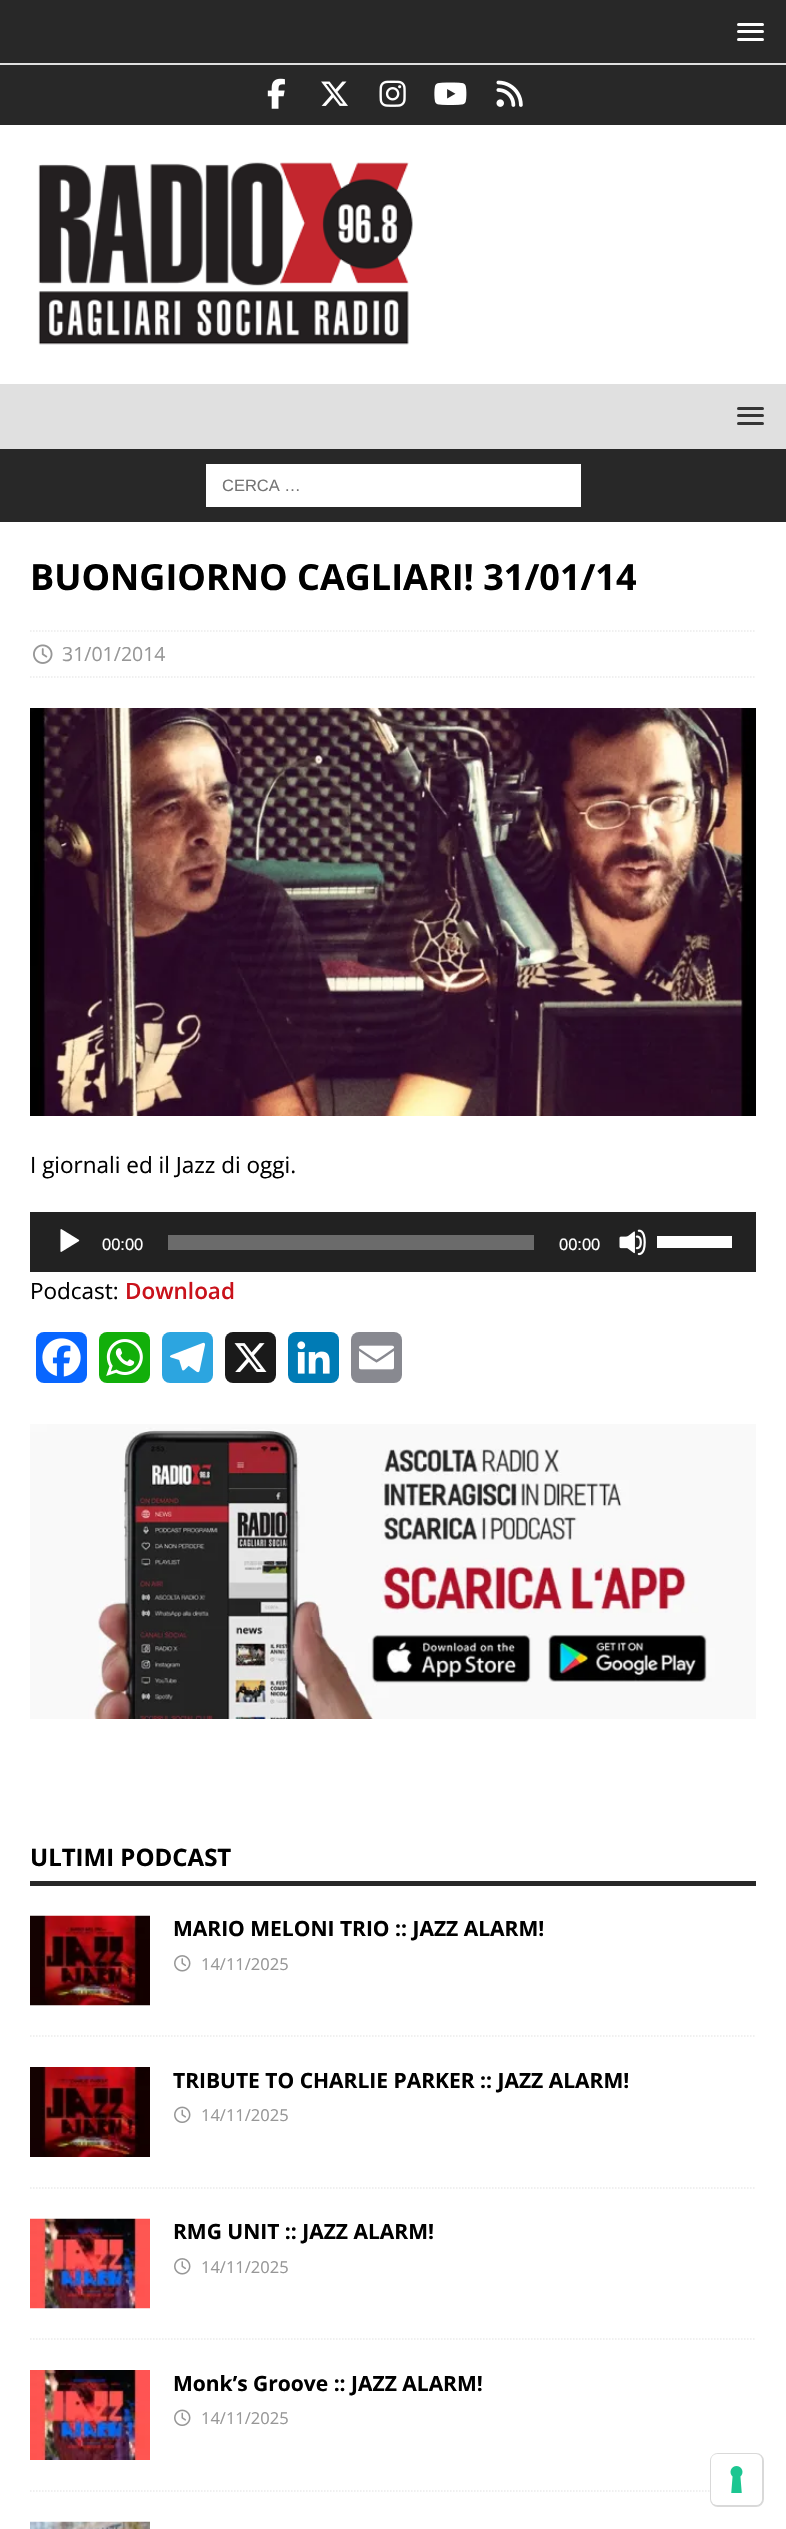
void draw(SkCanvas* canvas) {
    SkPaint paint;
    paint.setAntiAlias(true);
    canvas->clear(0xFF282828);
    paint.setColor(0xFFE0E0E0);
    canvas->drawRect(SkRect::MakeXYWH(0, 63, 786, 2), paint);
    paint.setColor(0xFFFFFFFF);
    canvas->drawRoundRect(SkRect::MakeXYWH(737, 23, 27, 3), 1.5f, 1.5f, paint);
    canvas->drawRoundRect(SkRect::MakeXYWH(737, 30, 27, 3), 1.5f, 1.5f, paint);
    canvas->drawRoundRect(SkRect::MakeXYWH(737, 38, 27, 3), 1.5f, 1.5f, paint);
    canvas->drawImageRect(SkImages::DeferredFromEncodedData(SkData::MakeFromFileName("img1.png")), SkRect::MakeXYWH(267, 78, 18, 31), SkSamplingOptions());
    canvas->drawImageRect(SkImages::DeferredFromEncodedData(SkData::MakeFromFileName("img2.png")), SkRect::MakeXYWH(321, 81, 27, 25), SkSamplingOptions());
    canvas->drawImageRect(SkImages::DeferredFromEncodedData(SkData::MakeFromFileName("img3.png")), SkRect::MakeXYWH(379, 80, 27, 27), SkSamplingOptions());
    canvas->drawImageRect(SkImages::DeferredFromEncodedData(SkData::MakeFromFileName("img4.png")), SkRect::MakeXYWH(434, 82, 33, 23), SkSamplingOptions());
    canvas->drawImageRect(SkImages::DeferredFromEncodedData(SkData::MakeFromFileName("img5.png")), SkRect::MakeXYWH(496, 80, 27, 27), SkSamplingOptions());
    canvas->drawRect(SkRect::MakeXYWH(0, 125, 786, 259), paint);
    canvas->drawImageRect(SkImages::DeferredFromEncodedData(SkData::MakeFromFileName("img6.png")), SkRect::MakeXYWH(38, 162, 375, 183), SkSamplingOptions());
    paint.setColor(0xFFE0E0E0);
    canvas->drawRect(SkRect::MakeXYWH(0, 384, 786, 65), paint);
    paint.setColor(0xFF353535);
    canvas->drawRoundRect(SkRect::MakeXYWH(737, 407, 27, 3), 1.5f, 1.5f, paint);
    canvas->drawRoundRect(SkRect::MakeXYWH(737, 414, 27, 3), 1.5f, 1.5f, paint);
    canvas->drawRoundRect(SkRect::MakeXYWH(737, 422, 27, 3), 1.5f, 1.5f, paint);
    paint.setColor(0xFFFFFFFF);
    canvas->drawRect(SkRect::MakeXYWH(206, 464, 375, 43), paint);
    SkFont font1(fontMgr->matchFamilyStyle("Liberation Sans", SkFontStyle::Normal()), 16.5f);
    font1.setSubpixel(true);
    paint.setColor(0xFF757575);
    canvas->drawString("CERCA …", 222, 491, font1, paint);
    paint.setColor(0xFFFFFFFF);
    canvas->drawRect(SkRect::MakeXYWH(0, 522, 786, 2007), paint);
    SkFont font2(fontMgr->matchFamilyStyle("Open Sans", SkFontStyle::Bold()), 36);
    font2.setSubpixel(true);
    paint.setColor(0xFF000000);
    canvas->drawString("BUONGIORNO CAGLIARI! 31/01/14", 30, 590, font2, paint);
    paint.setStyle(SkPaint::kStroke_Style);
    paint.setStrokeWidth(1.5f);
    paint.setColor(0xFFEBEBEB);
    paint.setPathEffect(SkDashPathEffect::Make({{1.5f, 1.5f}}, 0));
    canvas->drawPath(SkPathBuilder().moveTo(30, 631).lineTo(756, 631).detach(), paint);
    paint.setPathEffect(nullptr);
    paint.setPathEffect(SkDashPathEffect::Make({{1.5f, 1.5f}}, 0));
    canvas->drawPath(SkPathBuilder().moveTo(30, 677).lineTo(756, 677).detach(), paint);
    paint.setPathEffect(nullptr);
    canvas->drawImageRect(SkImages::DeferredFromEncodedData(SkData::MakeFromFileName("img7.png")), SkRect::MakeXYWH(33, 644, 20, 20), SkSamplingOptions());
    SkFont font3(fontMgr->matchFamilyStyle("Open Sans", SkFontStyle::Normal()), 19.5f);
    font3.setSubpixel(true);
    paint.setStyle(SkPaint::kFill_Style);
    paint.setColor(0xFF979797);
    canvas->drawString("31/01/2014", 62, 661, font3, paint);
    canvas->drawImageRect(SkImages::DeferredFromEncodedData(SkData::MakeFromFileName("img8.png")), SkRect::MakeXYWH(30, 708, 726, 408), SkSamplingOptions());
    SkFont font4(fontMgr->matchFamilyStyle("Open Sans", SkFontStyle::Normal()), 22.5f);
    font4.setSubpixel(true);
    paint.setColor(0xFF000000);
    canvas->drawString("I giornali ed il Jazz di oggi.", 30, 1173, font4, paint);
    paint.setColor(0xFF222222);
    canvas->drawRect(SkRect::MakeXYWH(30, 1212, 726, 60), paint);
    canvas->drawImageRect(SkImages::DeferredFromEncodedData(SkData::MakeFromFileName("img9.png")), SkRect::MakeXYWH(60, 1229, 20, 23), SkSamplingOptions());
    paint.setColor(0xFFFFFFFF);
    canvas->drawString("00:00", 102, 1250, font1, paint);
    paint.setColor(0xFF6B6B6B);
    canvas->drawRect(SkRect::MakeXYWH(168, 1235, 366, 15), paint);
    paint.setColor(0xFFFFFFFF);
    canvas->drawString("00:00", 559, 1250, font1, paint);
    canvas->drawImageRect(SkImages::DeferredFromEncodedData(SkData::MakeFromFileName("img10.png")), SkRect::MakeXYWH(619, 1229, 27, 27), SkSamplingOptions());
    canvas->drawRect(SkRect::MakeXYWH(657, 1236, 75, 12), paint);
    paint.setColor(0xFF000000);
    canvas->drawString("Podcast:", 30, 1299, font4, paint);
    SkFont font5(fontMgr->matchFamilyStyle("Open Sans", SkFontStyle(600, SkFontStyle::kNormal_Width, SkFontStyle::kUpright_Slant)), 22.5f);
    font5.setSubpixel(true);
    paint.setColor(0xFFC9121B);
    canvas->drawString("Download", 125, 1299, font5, paint);
    paint.setColor(0xFF0866FF);
    canvas->drawRoundRect(SkRect::MakeXYWH(36, 1332, 51, 51), 8, 8, paint);
    canvas->drawImageRect(SkImages::DeferredFromEncodedData(SkData::MakeFromFileName("img11.png")), SkRect::MakeXYWH(42, 1338, 39, 39), SkSamplingOptions());
    paint.setColor(0xFF12AF0A);
    canvas->drawRoundRect(SkRect::MakeXYWH(99, 1332, 51, 51), 8, 8, paint);
    canvas->drawImageRect(SkImages::DeferredFromEncodedData(SkData::MakeFromFileName("img12.png")), SkRect::MakeXYWH(106, 1339, 37, 37), SkSamplingOptions());
    paint.setColor(0xFF2CA5E0);
    canvas->drawRoundRect(SkRect::MakeXYWH(162, 1332, 51, 51), 8, 8, paint);
    canvas->drawImageRect(SkImages::DeferredFromEncodedData(SkData::MakeFromFileName("img13.png")), SkRect::MakeXYWH(170, 1342, 35, 31), SkSamplingOptions());
    paint.setColor(0xFF1A1A1A);
    canvas->drawRoundRect(SkRect::MakeXYWH(225, 1332, 51, 51), 8, 8, paint);
    canvas->drawImageRect(SkImages::DeferredFromEncodedData(SkData::MakeFromFileName("img14.png")), SkRect::MakeXYWH(234, 1343, 33, 29), SkSamplingOptions());
    paint.setColor(0xFF007BB5);
    canvas->drawRoundRect(SkRect::MakeXYWH(288, 1332, 51, 51), 8, 8, paint);
    canvas->drawImageRect(SkImages::DeferredFromEncodedData(SkData::MakeFromFileName("img15.png")), SkRect::MakeXYWH(297, 1341, 33, 33), SkSamplingOptions());
    paint.setColor(0xFF888990);
    canvas->drawRoundRect(SkRect::MakeXYWH(351, 1332, 51, 51), 8, 8, paint);
    canvas->drawImageRect(SkImages::DeferredFromEncodedData(SkData::MakeFromFileName("img16.png")), SkRect::MakeXYWH(359, 1345, 35, 25), SkSamplingOptions());
    canvas->drawImageRect(SkImages::DeferredFromEncodedData(SkData::MakeFromFileName("img17.png")), SkRect::MakeXYWH(30, 1424, 726, 295), SkSamplingOptions());
    paint.setColor(0xFF282828);
    canvas->drawRect(SkRect::MakeXYWH(30, 1881, 726, 5), paint);
    SkFont font6(fontMgr->matchFamilyStyle("Open Sans", SkFontStyle::Bold()), 24);
    font6.setSubpixel(true);
    paint.setColor(0xFF000000);
    canvas->drawString("ULTIMI PODCAST", 30, 1866, font6, paint);
    paint.setStyle(SkPaint::kStroke_Style);
    paint.setColor(0xFFEBEBEB);
    paint.setPathEffect(SkDashPathEffect::Make({{1.5f, 1.5f}}, 0));
    canvas->drawPath(SkPathBuilder().moveTo(30, 2036).lineTo(756, 2036).detach(), paint);
    paint.setPathEffect(nullptr);
    canvas->drawImageRect(SkImages::DeferredFromEncodedData(SkData::MakeFromFileName("img18.png")), SkRect::MakeXYWH(30, 1915, 120, 91), SkSamplingOptions());
    SkFont font7(fontMgr->matchFamilyStyle("Open Sans", SkFontStyle::Bold()), 21);
    font7.setSubpixel(true);
    paint.setStyle(SkPaint::kFill_Style);
    paint.setColor(0xFF000000);
    canvas->drawString("MARIO MELONI TRIO :: JAZZ ALARM!", 173, 1936, font7, paint);
    canvas->drawImageRect(SkImages::DeferredFromEncodedData(SkData::MakeFromFileName("img19.png")), SkRect::MakeXYWH(174, 1955, 17, 17), SkSamplingOptions());
    SkFont font8(fontMgr->matchFamilyStyle("Open Sans", SkFontStyle::Normal()), 16.5f);
    font8.setSubpixel(true);
    paint.setColor(0xFF979797);
    canvas->drawString("14/11/2025", 201, 1970, font8, paint);
    paint.setStyle(SkPaint::kStroke_Style);
    paint.setColor(0xFFEBEBEB);
    paint.setPathEffect(SkDashPathEffect::Make({{1.5f, 1.5f}}, 0));
    canvas->drawPath(SkPathBuilder().moveTo(30, 2188).lineTo(756, 2188).detach(), paint);
    paint.setPathEffect(nullptr);
    canvas->drawImageRect(SkImages::DeferredFromEncodedData(SkData::MakeFromFileName("img20.png")), SkRect::MakeXYWH(30, 2067, 120, 90), SkSamplingOptions());
    paint.setStyle(SkPaint::kFill_Style);
    paint.setColor(0xFF000000);
    canvas->drawString("TRIBUTE TO CHARLIE PARKER :: JAZZ ALARM!", 173, 2088, font7, paint);
    canvas->drawImageRect(SkImages::DeferredFromEncodedData(SkData::MakeFromFileName("img21.png")), SkRect::MakeXYWH(174, 2106, 17, 17), SkSamplingOptions());
    paint.setColor(0xFF979797);
    canvas->drawString("14/11/2025", 201, 2121, font8, paint);
    paint.setStyle(SkPaint::kStroke_Style);
    paint.setColor(0xFFEBEBEB);
    paint.setPathEffect(SkDashPathEffect::Make({{1.5f, 1.5f}}, 0));
    canvas->drawPath(SkPathBuilder().moveTo(30, 2339).lineTo(756, 2339).detach(), paint);
    paint.setPathEffect(nullptr);
    canvas->drawImageRect(SkImages::DeferredFromEncodedData(SkData::MakeFromFileName("img22.png")), SkRect::MakeXYWH(30, 2218, 120, 91), SkSamplingOptions());
    paint.setStyle(SkPaint::kFill_Style);
    paint.setColor(0xFF000000);
    canvas->drawString("RMG UNIT :: JAZZ ALARM!", 173, 2239, font7, paint);
    canvas->drawImageRect(SkImages::DeferredFromEncodedData(SkData::MakeFromFileName("img19.png")), SkRect::MakeXYWH(174, 2258, 17, 17), SkSamplingOptions());
    paint.setColor(0xFF979797);
    canvas->drawString("14/11/2025", 201, 2273, font8, paint);
    paint.setStyle(SkPaint::kStroke_Style);
    paint.setColor(0xFFEBEBEB);
    paint.setPathEffect(SkDashPathEffect::Make({{1.5f, 1.5f}}, 0));
    canvas->drawPath(SkPathBuilder().moveTo(30, 2491).lineTo(756, 2491).detach(), paint);
    paint.setPathEffect(nullptr);
    canvas->drawImageRect(SkImages::DeferredFromEncodedData(SkData::MakeFromFileName("img23.png")), SkRect::MakeXYWH(30, 2370, 120, 90), SkSamplingOptions());
    paint.setStyle(SkPaint::kFill_Style);
    paint.setColor(0xFF000000);
    canvas->drawString("Monk’s Groove :: JAZZ ALARM!", 173, 2391, font7, paint);
    canvas->drawImageRect(SkImages::DeferredFromEncodedData(SkData::MakeFromFileName("img21.png")), SkRect::MakeXYWH(174, 2409, 17, 17), SkSamplingOptions());
    paint.setColor(0xFF979797);
    canvas->drawString("14/11/2025", 201, 2424, font8, paint);
    canvas->drawImageRect(SkImages::DeferredFromEncodedData(SkData::MakeFromFileName("img24.png")), SkRect::MakeXYWH(30, 2521, 120, 8), SkSamplingOptions());
    paint.setStyle(SkPaint::kStroke_Style);
    paint.setStrokeWidth(2);
    paint.setColor(0x26000000);
    canvas->drawRoundRect(SkRect::MakeXYWH(711, 2454, 52, 52), 7, 7, paint);
    paint.setStyle(SkPaint::kFill_Style);
    paint.setColor(0xFFFFFFFF);
    canvas->drawRoundRect(SkRect::MakeXYWH(711, 2454, 51, 51), 6, 6, paint);
    canvas->drawImageRect(SkImages::DeferredFromEncodedData(SkData::MakeFromFileName("img25.png")), SkRect::MakeXYWH(730, 2466, 13, 27), SkSamplingOptions());
}
